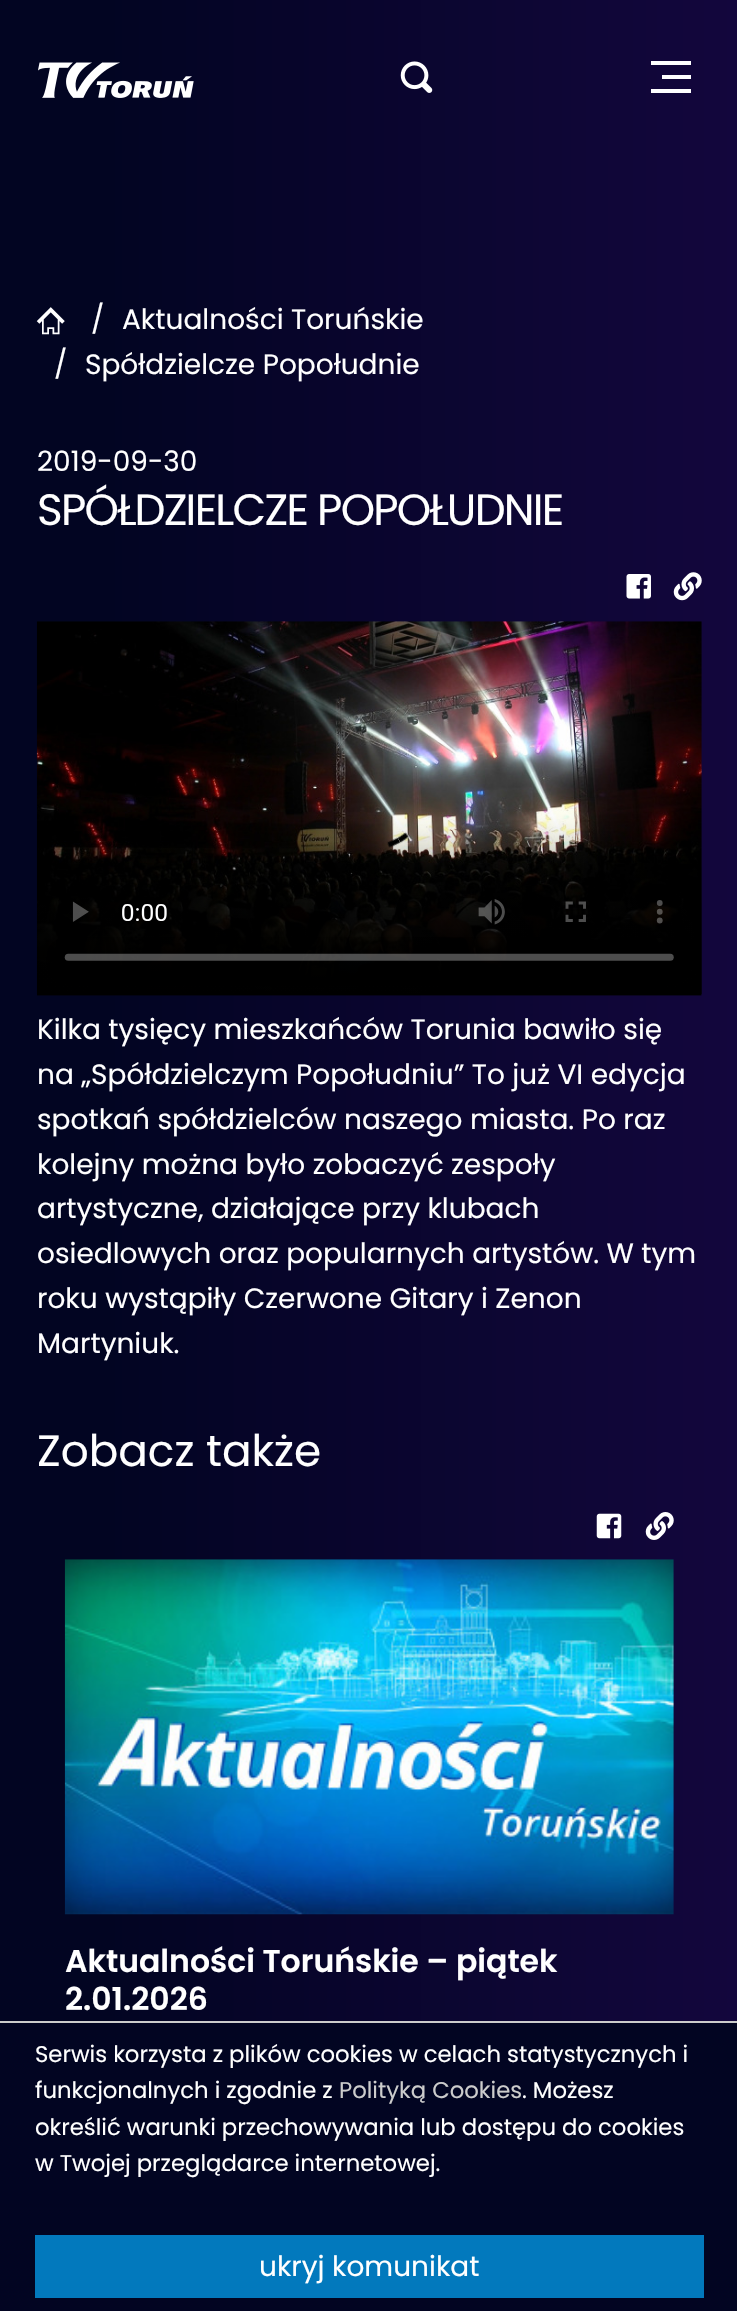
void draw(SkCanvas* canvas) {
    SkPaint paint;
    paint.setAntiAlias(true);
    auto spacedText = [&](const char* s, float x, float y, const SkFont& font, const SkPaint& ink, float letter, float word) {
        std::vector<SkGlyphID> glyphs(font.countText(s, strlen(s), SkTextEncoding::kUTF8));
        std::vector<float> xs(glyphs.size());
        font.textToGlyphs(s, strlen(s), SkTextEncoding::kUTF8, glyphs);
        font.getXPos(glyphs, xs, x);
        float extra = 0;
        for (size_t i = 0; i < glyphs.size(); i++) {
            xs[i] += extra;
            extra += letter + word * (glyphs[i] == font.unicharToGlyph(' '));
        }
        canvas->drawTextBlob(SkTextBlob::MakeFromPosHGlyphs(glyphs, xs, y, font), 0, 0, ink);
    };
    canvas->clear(0xFFFFFFFF);
    {
        const SkColor colors[] = {0xFF020522, 0xFF13063D};
        const float stops[] = {0.14f, 1};
        const SkPoint ends[] = {{0, 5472}, {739, 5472}};
        paint.setShader(SkGradientShader::MakeLinear(ends, colors, stops, 2, SkTileMode::kClamp));
        paint.setAlpha(255);
    }
    canvas->drawRect(SkRect::MakeXYWH(0, 0, 737, 2021), paint);
    canvas->drawImageRect(SkImages::DeferredFromEncodedData(SkData::MakeFromFileName("img1.png")), SkRect::MakeXYWH(38, 62, 156, 36), SkSamplingOptions());
    canvas->drawImageRect(SkImages::DeferredFromEncodedData(SkData::MakeFromFileName("img2.png")), SkRect::MakeXYWH(400, 61, 33, 32), SkSamplingOptions());
    paint.setShader(nullptr);
    paint.setColor(0xFFFFFFFF);
    canvas->drawRect(SkRect::MakeXYWH(651, 61, 40, 4), paint);
    canvas->drawRect(SkRect::MakeXYWH(662, 75, 29, 4), paint);
    canvas->drawRect(SkRect::MakeXYWH(651, 89, 40, 4), paint);
    canvas->drawImageRect(SkImages::DeferredFromEncodedData(SkData::MakeFromFileName("img3.png")), SkRect::MakeXYWH(36, 307, 29, 28), SkSamplingOptions());
    SkFont font1(fontMgr->matchFamilyStyle("Poppins", SkFontStyle::Normal()), 28);
    font1.setSubpixel(true);
    canvas->drawString("/", 91, 329, font1, paint);
    canvas->drawString("Aktualności Toruńskie", 122, 329, font1, paint);
    canvas->drawString("/", 54, 374, font1, paint);
    canvas->drawString("Spółdzielcze Popołudnie", 85, 374, font1, paint);
    canvas->drawString("2019-09-30", 37, 471, font1, paint);
    SkFont font2(fontMgr->matchFamilyStyle("Poppins", SkFontStyle::Normal()), 43.75f);
    font2.setSubpixel(true);
    spacedText("SPÓŁDZIELCZE POPOŁUDNIE", 37, 525, font2, paint, -1.75f, 0);
    canvas->drawImageRect(SkImages::DeferredFromEncodedData(SkData::MakeFromFileName("img4.png")), SkRect::MakeXYWH(626, 574, 25, 25), SkSamplingOptions());
    canvas->drawImageRect(SkImages::DeferredFromEncodedData(SkData::MakeFromFileName("img5.png")), SkRect::MakeXYWH(673, 572, 29, 29), SkSamplingOptions());
    canvas->drawImageRect(SkImages::DeferredFromEncodedData(SkData::MakeFromFileName("img6.png")), SkRect::MakeXYWH(36, 621, 666, 375), SkSamplingOptions());
    canvas->drawString("Kilka tysięcy mieszkańców Torunia bawiło się", 37, 1039, font1, paint);
    canvas->drawString("na „Spółdzielczym Popołudniu” To już VI edycja", 37, 1084, font1, paint);
    canvas->drawString("spotkań spółdzielców naszego miasta. Po raz", 37, 1129, font1, paint);
    canvas->drawString("kolejny można było zobaczyć zespoły", 37, 1174, font1, paint);
    canvas->drawString("artystyczne, działające przy klubach", 37, 1218, font1, paint);
    canvas->drawString("osiedlowych oraz popularnych artystów. W tym", 37, 1263, font1, paint);
    canvas->drawString("roku wystąpiły Czerwone Gitary i Zenon", 37, 1308, font1, paint);
    canvas->drawString("Martyniuk.", 37, 1353, font1, paint);
    canvas->drawString("Zobacz także", 37, 1466, font2, paint);
    canvas->drawImageRect(SkImages::DeferredFromEncodedData(SkData::MakeFromFileName("img7.png")), SkRect::MakeXYWH(596, 1513, 26, 26), SkSamplingOptions());
    canvas->drawImageRect(SkImages::DeferredFromEncodedData(SkData::MakeFromFileName("img8.png")), SkRect::MakeXYWH(645, 1512, 29, 28), SkSamplingOptions());
    canvas->drawImageRect(SkImages::DeferredFromEncodedData(SkData::MakeFromFileName("img9.png")), SkRect::MakeXYWH(64, 1559, 610, 356), SkSamplingOptions());
    SkFont font3(fontMgr->matchFamilyStyle("Poppins", SkFontStyle(600, SkFontStyle::kNormal_Width, SkFontStyle::kUpright_Slant)), 31.5f);
    font3.setSubpixel(true);
    canvas->drawString("Aktualności Toruńskie – piątek", 65, 1972, font3, paint);
    canvas->drawString("2.01.2026", 65, 2010, font3, paint);
    paint.setColor(0xFF020522);
    canvas->drawRect(SkRect::MakeXYWH(0, 2023, 737, 288), paint);
    paint.setColor(0xFFCCCCCC);
    canvas->drawRect(SkRect::MakeXYWH(0, 2021, 737, 2), paint);
    SkFont font4(fontMgr->matchFamilyStyle("Poppins", SkFontStyle::Normal()), 22.75f);
    font4.setSubpixel(true);
    paint.setColor(0xFFFFFFFF);
    canvas->drawString("Serwis korzysta z plików cookies w celach statystycznych i", 35, 2062, font4, paint);
    canvas->drawString("funkcjonalnych i zgodnie z", 35, 2098, font4, paint);
    paint.setColor(0xFFCCCCCC);
    canvas->drawString("Polityką Cookies", 339, 2098, font4, paint);
    paint.setColor(0xFFFFFFFF);
    canvas->drawString(". Możesz", 522, 2098, font4, paint);
    canvas->drawString("określić warunki przechowywania lub dostępu do cookies", 35, 2135, font4, paint);
    canvas->drawString("w Twojej przeglądarce internetowej.", 35, 2171, font4, paint);
    paint.setColor(0xFF0279BD);
    canvas->drawRect(SkRect::MakeXYWH(35, 2235, 669, 63), paint);
    paint.setColor(0xFFFFFFFF);
    canvas->drawString("ukryj komunikat", 259, 2276, font1, paint);
}
